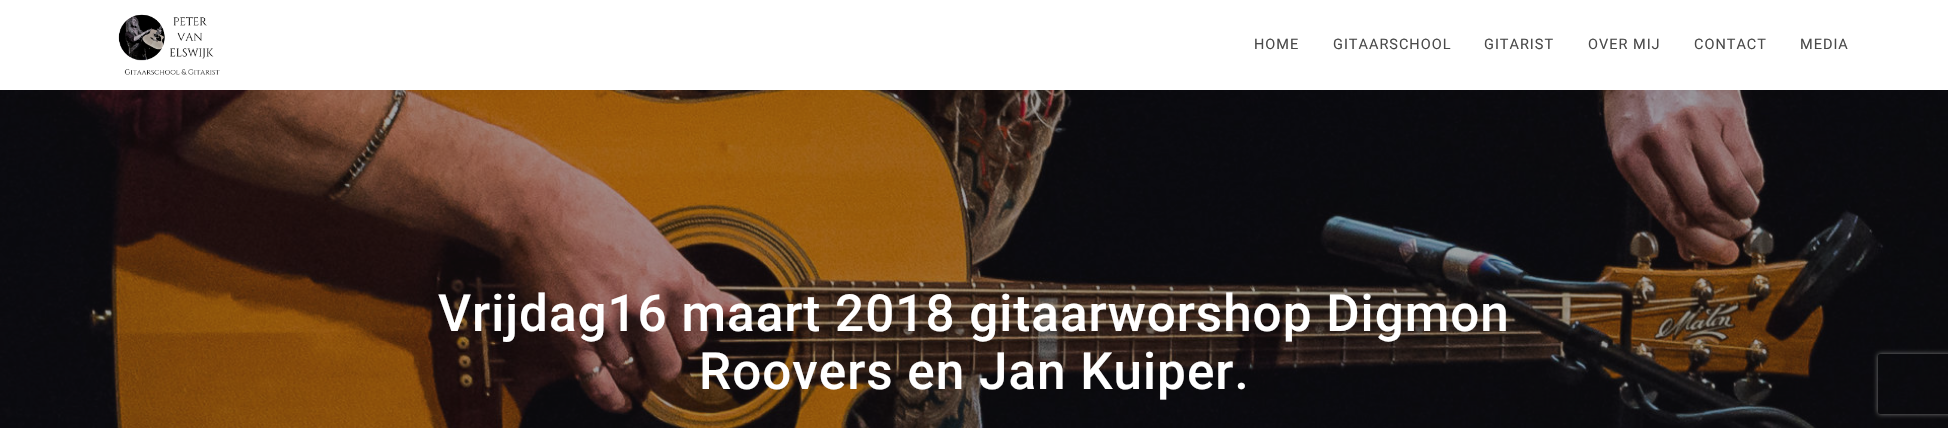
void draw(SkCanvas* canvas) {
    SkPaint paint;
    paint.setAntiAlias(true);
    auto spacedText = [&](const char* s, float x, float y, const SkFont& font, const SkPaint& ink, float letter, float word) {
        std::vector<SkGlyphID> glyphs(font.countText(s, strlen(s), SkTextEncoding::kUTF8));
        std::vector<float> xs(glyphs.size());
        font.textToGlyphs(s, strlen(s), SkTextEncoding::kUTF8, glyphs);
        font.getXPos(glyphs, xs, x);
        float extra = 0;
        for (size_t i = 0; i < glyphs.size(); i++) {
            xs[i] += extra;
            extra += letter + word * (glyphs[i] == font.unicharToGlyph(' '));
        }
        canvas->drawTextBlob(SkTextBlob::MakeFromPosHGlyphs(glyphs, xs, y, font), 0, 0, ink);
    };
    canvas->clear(0xFFFFFFFF);
    canvas->drawImageRect(SkImages::DeferredFromEncodedData(SkData::MakeFromFileName("img1.png")), SkRect::MakeXYWH(118, 14, 102, 61), SkSamplingOptions());
    SkFont font1(fontMgr->matchFamilyStyle("Roboto", SkFontStyle::Normal()), 14.5f);
    font1.setSubpixel(true);
    paint.setColor(0xFF4A4A4A);
    spacedText("HOME", 1254, 49, font1, paint, 1, 0);
    spacedText("GITAARSCHOOL", 1333, 49, font1, paint, 1, 0);
    spacedText("GITARIST", 1484, 49, font1, paint, 1, 0);
    spacedText("OVER MIJ", 1588, 49, font1, paint, 1, 0);
    spacedText("CONTACT", 1694, 49, font1, paint, 1, 0);
    spacedText("MEDIA", 1800, 49, font1, paint, 1, 0);
    canvas->drawImageRect(SkImages::DeferredFromEncodedData(SkData::MakeFromFileName("img2.png")), SkRect::MakeXYWH(0, 90, 1948, 338), SkSamplingOptions());
    SkFont font2(fontMgr->matchFamilyStyle("Roboto", SkFontStyle(500, SkFontStyle::kNormal_Width, SkFontStyle::kUpright_Slant)), 51.2f);
    font2.setSubpixel(true);
    paint.setColor(0xFFFFFFFF);
    spacedText("Vrijdag16 maart 2018 gitaarworshop Digmon", 438, 331, font2, paint, 1, 0);
    spacedText("Roovers en Jan Kuiper.", 699, 389, font2, paint, 1, 0);
    canvas->save();
    canvas->clipPath(SkPathBuilder(SkPathFillType::kEvenOdd).moveTo(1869, 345).lineTo(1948, 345).lineTo(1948, 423).lineTo(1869, 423).close().moveTo(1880, 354).lineTo(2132, 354).cubicTo(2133, 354, 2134, 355, 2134, 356).lineTo(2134, 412).cubicTo(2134, 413, 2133, 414, 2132, 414).lineTo(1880, 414).cubicTo(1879, 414, 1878, 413, 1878, 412).lineTo(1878, 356).cubicTo(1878, 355, 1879, 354, 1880, 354).close().detach(), true);
    paint.setColor(0xFF808080);
    paint.setMaskFilter(SkMaskFilter::MakeBlur(kNormal_SkBlurStyle, 2.5f));
    canvas->drawRoundRect(SkRect::MakeXYWH(1878, 354, 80, 60), 2, 2, paint);
    paint.setMaskFilter(nullptr);
    canvas->restore();
}
